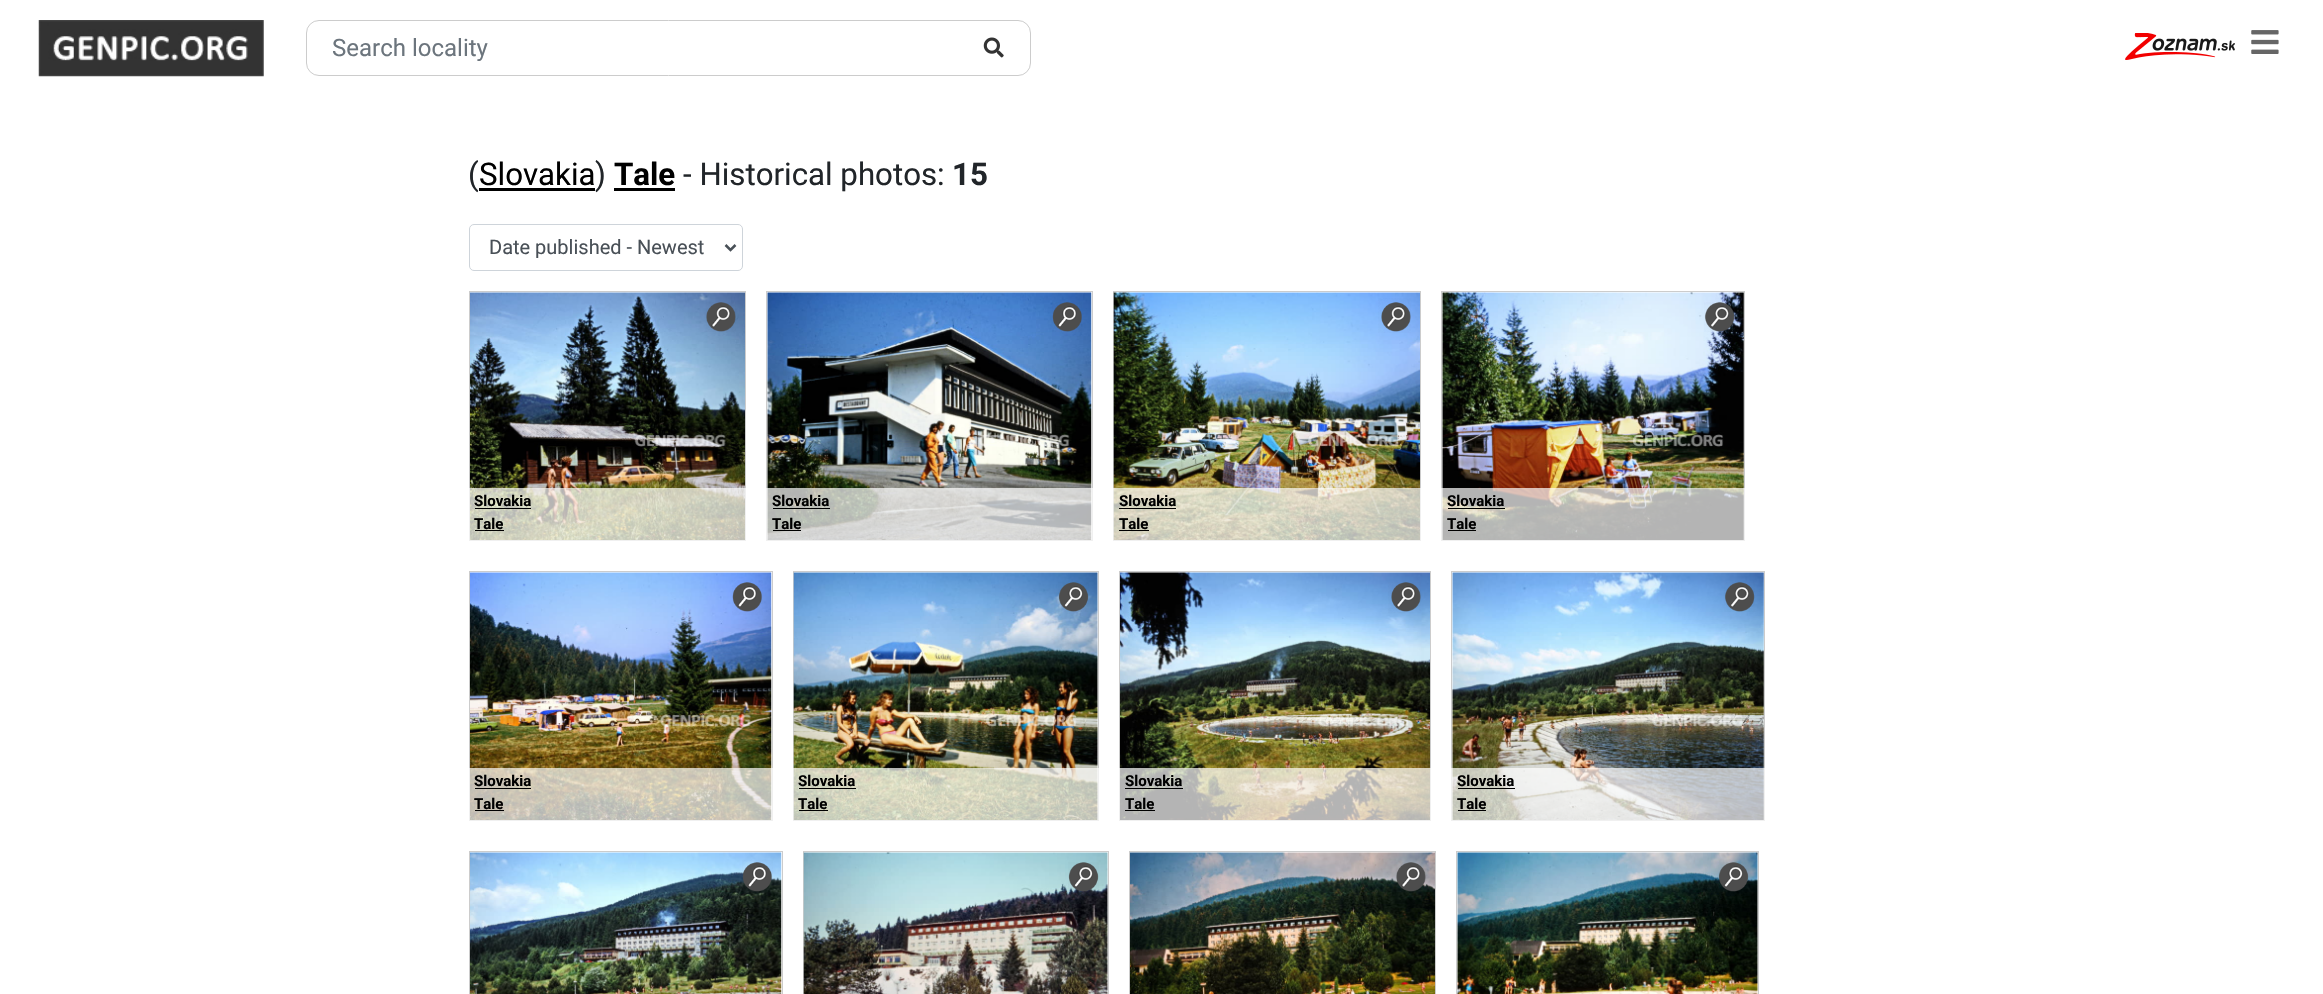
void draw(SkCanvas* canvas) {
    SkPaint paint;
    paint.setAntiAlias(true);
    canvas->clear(0xFFFFFFFF);
    canvas->drawImageRect(SkImages::DeferredFromEncodedData(SkData::MakeFromFileName("img1.png")), SkRect::MakeXYWH(38, 20, 226, 57), SkSamplingOptions());
    paint.setStyle(SkPaint::kStroke_Style);
    paint.setStrokeWidth(1);
    paint.setColor(0xFFCCCCCC);
    canvas->drawRoundRect(SkRect::MakeXYWH(306.5f, 20.5f, 724, 55), 12.5f, 12.5f, paint);
    SkFont font1(fontMgr->matchFamilyStyle("Roboto", SkFontStyle::Normal()), 24);
    font1.setSubpixel(true);
    paint.setStyle(SkPaint::kFill_Style);
    paint.setColor(0xFF6C757D);
    canvas->drawString("Search locality", 332, 56, font1, paint);
    canvas->drawImageRect(SkImages::DeferredFromEncodedData(SkData::MakeFromFileName("img2.png")), SkRect::MakeXYWH(983, 37, 21, 21), SkSamplingOptions());
    canvas->drawImageRect(SkImages::DeferredFromEncodedData(SkData::MakeFromFileName("img3.png")), SkRect::MakeXYWH(2125, 33, 110, 27), SkSamplingOptions());
    canvas->drawImageRect(SkImages::DeferredFromEncodedData(SkData::MakeFromFileName("img4.png")), SkRect::MakeXYWH(2251, 30, 28, 24), SkSamplingOptions());
    SkFont font2(fontMgr->matchFamilyStyle("Roboto", SkFontStyle::Normal()), 31.25f);
    font2.setSubpixel(true);
    paint.setColor(0xFF212529);
    canvas->drawString("(", 468, 185, font2, paint);
    paint.setColor(0xFF000000);
    canvas->drawString("Slovakia", 479, 185, font2, paint);
    canvas->drawRect(SkRect::MakeXYWH(479, 188, 116, 3), paint);
    paint.setColor(0xFF212529);
    canvas->drawString(")", 595, 185, font2, paint);
    SkFont font3(fontMgr->matchFamilyStyle("Roboto", SkFontStyle::Bold()), 31.25f);
    font3.setSubpixel(true);
    paint.setColor(0xFF000000);
    canvas->drawString("Tale", 614, 185, font3, paint);
    canvas->drawRect(SkRect::MakeXYWH(614, 188, 61, 3), paint);
    paint.setColor(0xFF212529);
    canvas->drawString("- Historical photos:", 683, 185, font2, paint);
    canvas->drawString("15", 952, 185, font3, paint);
    paint.setStyle(SkPaint::kStroke_Style);
    paint.setColor(0xFFCED4DA);
    canvas->drawRoundRect(SkRect::MakeXYWH(469.5f, 224.5f, 273, 46), 4.5f, 4.5f, paint);
    paint.setStrokeWidth(2.5f);
    paint.setColor(0xFF495057);
    canvas->drawPath(SkPathBuilder().moveTo(725.5f, 245).lineTo(730.5f, 250).lineTo(735.5f, 245).detach(), paint);
    SkFont font4(fontMgr->matchFamilyStyle("Roboto", SkFontStyle::Normal()), 20);
    font4.setSubpixel(true);
    paint.setStyle(SkPaint::kFill_Style);
    canvas->drawString("Date published - Newest", 489, 254, font4, paint);
    paint.setStyle(SkPaint::kStroke_Style);
    paint.setStrokeWidth(1);
    paint.setColor(0xFFCCCCCC);
    canvas->drawRect(SkRect::MakeXYWH(469.5f, 291.5f, 276, 249), paint);
    canvas->drawImageRect(SkImages::DeferredFromEncodedData(SkData::MakeFromFileName("img5.png")), SkRect::MakeXYWH(470, 292, 275, 248), SkSamplingOptions());
    canvas->drawImageRect(SkImages::DeferredFromEncodedData(SkData::MakeFromFileName("img6.png")), SkRect::MakeXYWH(706, 302, 30, 30), SkSamplingOptions());
    paint.setStyle(SkPaint::kFill_Style);
    paint.setColor(0xB3FFFFFF);
    canvas->drawRect(SkRect::MakeXYWH(469, 488, 277, 53), paint);
    SkFont font5(fontMgr->matchFamilyStyle("Roboto", SkFontStyle::Bold()), 15);
    font5.setSubpixel(true);
    paint.setColor(0xFF000000);
    canvas->drawString("Slovakia", 474, 506, font5, paint);
    canvas->drawRect(SkRect::MakeXYWH(475, 508, 56, 1), paint);
    canvas->drawString("Tale", 474, 529, font5, paint);
    canvas->drawRect(SkRect::MakeXYWH(475, 530, 29, 1), paint);
    paint.setStyle(SkPaint::kStroke_Style);
    paint.setColor(0xFFCCCCCC);
    canvas->drawRect(SkRect::MakeXYWH(766.5f, 291.5f, 326, 249), paint);
    canvas->drawImageRect(SkImages::DeferredFromEncodedData(SkData::MakeFromFileName("img7.png")), SkRect::MakeXYWH(767, 292, 325, 248), SkSamplingOptions());
    canvas->drawImageRect(SkImages::DeferredFromEncodedData(SkData::MakeFromFileName("img8.png")), SkRect::MakeXYWH(1052, 302, 30, 30), SkSamplingOptions());
    paint.setStyle(SkPaint::kFill_Style);
    paint.setColor(0xB3FFFFFF);
    canvas->drawRect(SkRect::MakeXYWH(766, 488, 327, 53), paint);
    paint.setColor(0xFF000000);
    canvas->drawString("Slovakia", 772, 506, font5, paint);
    canvas->drawRect(SkRect::MakeXYWH(773, 508, 57, 1), paint);
    canvas->drawString("Tale", 772, 529, font5, paint);
    canvas->drawRect(SkRect::MakeXYWH(773, 530, 28, 1), paint);
    paint.setStyle(SkPaint::kStroke_Style);
    paint.setColor(0xFFCCCCCC);
    canvas->drawRect(SkRect::MakeXYWH(1113.5f, 291.5f, 307, 249), paint);
    canvas->drawImageRect(SkImages::DeferredFromEncodedData(SkData::MakeFromFileName("img9.png")), SkRect::MakeXYWH(1113, 292, 307, 248), SkSamplingOptions());
    canvas->drawImageRect(SkImages::DeferredFromEncodedData(SkData::MakeFromFileName("img10.png")), SkRect::MakeXYWH(1378, 298, 33, 35), SkSamplingOptions());
    paint.setStyle(SkPaint::kFill_Style);
    paint.setColor(0xB3FFFFFF);
    canvas->drawRect(SkRect::MakeXYWH(1113, 488, 308, 53), paint);
    paint.setColor(0xFF000000);
    canvas->drawString("Slovakia", 1119, 506, font5, paint);
    canvas->drawRect(SkRect::MakeXYWH(1119, 508, 57, 1), paint);
    canvas->drawString("Tale", 1119, 529, font5, paint);
    canvas->drawRect(SkRect::MakeXYWH(1119, 530, 30, 1), paint);
    paint.setStyle(SkPaint::kStroke_Style);
    paint.setColor(0xFFCCCCCC);
    canvas->drawRect(SkRect::MakeXYWH(1441.5f, 291.5f, 303, 249), paint);
    canvas->drawImageRect(SkImages::DeferredFromEncodedData(SkData::MakeFromFileName("img11.png")), SkRect::MakeXYWH(1442, 292, 302, 248), SkSamplingOptions());
    canvas->drawImageRect(SkImages::DeferredFromEncodedData(SkData::MakeFromFileName("img12.png")), SkRect::MakeXYWH(1704, 302, 31, 30), SkSamplingOptions());
    paint.setStyle(SkPaint::kFill_Style);
    paint.setColor(0xB3FFFFFF);
    canvas->drawRect(SkRect::MakeXYWH(1441, 488, 304, 53), paint);
    paint.setColor(0xFF000000);
    canvas->drawString("Slovakia", 1447, 506, font5, paint);
    canvas->drawRect(SkRect::MakeXYWH(1448, 508, 57, 1), paint);
    canvas->drawString("Tale", 1447, 529, font5, paint);
    canvas->drawRect(SkRect::MakeXYWH(1448, 530, 28, 1), paint);
    paint.setStyle(SkPaint::kStroke_Style);
    paint.setColor(0xFFCCCCCC);
    canvas->drawRect(SkRect::MakeXYWH(469.5f, 571.5f, 303, 249), paint);
    canvas->drawImageRect(SkImages::DeferredFromEncodedData(SkData::MakeFromFileName("img13.png")), SkRect::MakeXYWH(470, 572, 302, 248), SkSamplingOptions());
    canvas->drawImageRect(SkImages::DeferredFromEncodedData(SkData::MakeFromFileName("img14.png")), SkRect::MakeXYWH(732, 580, 31, 35), SkSamplingOptions());
    paint.setStyle(SkPaint::kFill_Style);
    paint.setColor(0xB3FFFFFF);
    canvas->drawRect(SkRect::MakeXYWH(469, 768, 304, 53), paint);
    paint.setColor(0xFF000000);
    canvas->drawString("Slovakia", 474, 786, font5, paint);
    canvas->drawRect(SkRect::MakeXYWH(475, 788, 56, 1), paint);
    canvas->drawString("Tale", 474, 809, font5, paint);
    canvas->drawRect(SkRect::MakeXYWH(475, 810, 29, 1), paint);
    paint.setStyle(SkPaint::kStroke_Style);
    paint.setColor(0xFFCCCCCC);
    canvas->drawRect(SkRect::MakeXYWH(793.5f, 571.5f, 305, 249), paint);
    canvas->drawImageRect(SkImages::DeferredFromEncodedData(SkData::MakeFromFileName("img15.png")), SkRect::MakeXYWH(793, 572, 305, 248), SkSamplingOptions());
    canvas->drawImageRect(SkImages::DeferredFromEncodedData(SkData::MakeFromFileName("img16.png")), SkRect::MakeXYWH(1058, 582, 31, 30), SkSamplingOptions());
    paint.setStyle(SkPaint::kFill_Style);
    paint.setColor(0xB3FFFFFF);
    canvas->drawRect(SkRect::MakeXYWH(793, 768, 306, 53), paint);
    paint.setColor(0xFF000000);
    canvas->drawString("Slovakia", 798, 786, font5, paint);
    canvas->drawRect(SkRect::MakeXYWH(799, 788, 57, 1), paint);
    canvas->drawString("Tale", 798, 809, font5, paint);
    canvas->drawRect(SkRect::MakeXYWH(799, 810, 29, 1), paint);
    paint.setStyle(SkPaint::kStroke_Style);
    paint.setColor(0xFFCCCCCC);
    canvas->drawRect(SkRect::MakeXYWH(1119.5f, 571.5f, 311, 249), paint);
    canvas->drawImageRect(SkImages::DeferredFromEncodedData(SkData::MakeFromFileName("img17.png")), SkRect::MakeXYWH(1120, 572, 310, 248), SkSamplingOptions());
    canvas->drawImageRect(SkImages::DeferredFromEncodedData(SkData::MakeFromFileName("img18.png")), SkRect::MakeXYWH(1388, 582, 33, 31), SkSamplingOptions());
    paint.setStyle(SkPaint::kFill_Style);
    paint.setColor(0xB3FFFFFF);
    canvas->drawRect(SkRect::MakeXYWH(1119, 768, 312, 53), paint);
    paint.setColor(0xFF000000);
    canvas->drawString("Slovakia", 1125, 786, font5, paint);
    canvas->drawRect(SkRect::MakeXYWH(1125, 788, 58, 1), paint);
    canvas->drawString("Tale", 1125, 809, font5, paint);
    canvas->drawRect(SkRect::MakeXYWH(1125, 810, 30, 1), paint);
    paint.setStyle(SkPaint::kStroke_Style);
    paint.setColor(0xFFCCCCCC);
    canvas->drawRect(SkRect::MakeXYWH(1451.5f, 571.5f, 313, 249), paint);
    canvas->drawImageRect(SkImages::DeferredFromEncodedData(SkData::MakeFromFileName("img19.png")), SkRect::MakeXYWH(1452, 572, 312, 248), SkSamplingOptions());
    canvas->drawImageRect(SkImages::DeferredFromEncodedData(SkData::MakeFromFileName("img20.png")), SkRect::MakeXYWH(1724, 582, 31, 30), SkSamplingOptions());
    paint.setStyle(SkPaint::kFill_Style);
    paint.setColor(0xB3FFFFFF);
    canvas->drawRect(SkRect::MakeXYWH(1451, 768, 314, 53), paint);
    paint.setColor(0xFF000000);
    canvas->drawString("Slovakia", 1457, 786, font5, paint);
    canvas->drawRect(SkRect::MakeXYWH(1458, 788, 57, 1), paint);
    canvas->drawString("Tale", 1457, 809, font5, paint);
    canvas->drawRect(SkRect::MakeXYWH(1458, 810, 28, 1), paint);
    paint.setStyle(SkPaint::kStroke_Style);
    paint.setColor(0xFFCCCCCC);
    canvas->drawRect(SkRect::MakeXYWH(469.5f, 851.5f, 313, 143), paint);
    canvas->drawImageRect(SkImages::DeferredFromEncodedData(SkData::MakeFromFileName("img21.png")), SkRect::MakeXYWH(470, 852, 312, 142), SkSamplingOptions());
    canvas->drawImageRect(SkImages::DeferredFromEncodedData(SkData::MakeFromFileName("img22.png")), SkRect::MakeXYWH(742, 860, 31, 32), SkSamplingOptions());
    canvas->drawRect(SkRect::MakeXYWH(803.5f, 851.5f, 305, 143), paint);
    canvas->drawImageRect(SkImages::DeferredFromEncodedData(SkData::MakeFromFileName("img23.png")), SkRect::MakeXYWH(803, 852, 305, 142), SkSamplingOptions());
    canvas->drawImageRect(SkImages::DeferredFromEncodedData(SkData::MakeFromFileName("img24.png")), SkRect::MakeXYWH(1068, 862, 31, 30), SkSamplingOptions());
    canvas->drawRect(SkRect::MakeXYWH(1129.5f, 851.5f, 306, 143), paint);
    canvas->drawImageRect(SkImages::DeferredFromEncodedData(SkData::MakeFromFileName("img25.png")), SkRect::MakeXYWH(1130, 852, 305, 142), SkSamplingOptions());
    canvas->drawImageRect(SkImages::DeferredFromEncodedData(SkData::MakeFromFileName("img26.png")), SkRect::MakeXYWH(1396, 862, 30, 30), SkSamplingOptions());
    canvas->drawRect(SkRect::MakeXYWH(1456.5f, 851.5f, 302, 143), paint);
    canvas->drawImageRect(SkImages::DeferredFromEncodedData(SkData::MakeFromFileName("img27.png")), SkRect::MakeXYWH(1457, 852, 301, 142), SkSamplingOptions());
    canvas->drawImageRect(SkImages::DeferredFromEncodedData(SkData::MakeFromFileName("img28.png")), SkRect::MakeXYWH(1718, 862, 31, 30), SkSamplingOptions());
}
